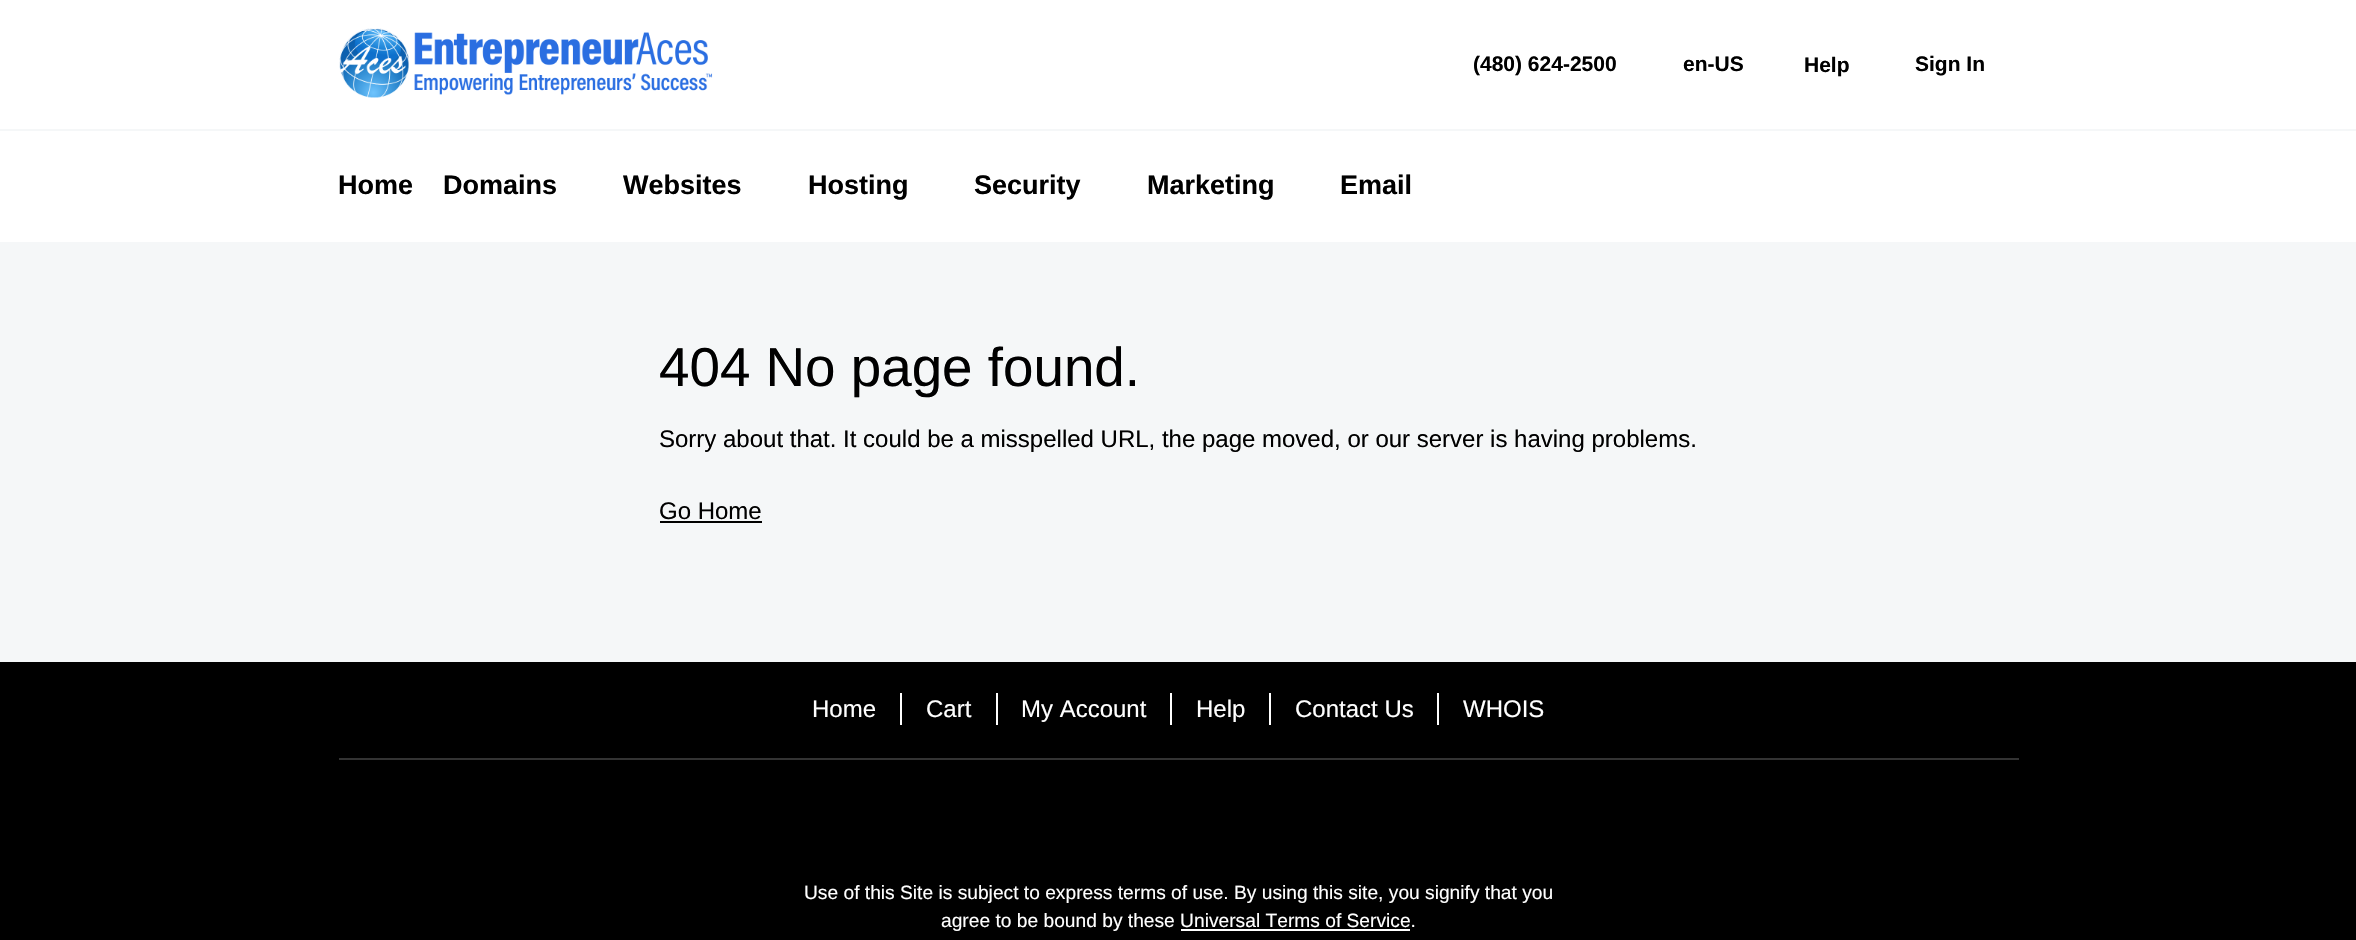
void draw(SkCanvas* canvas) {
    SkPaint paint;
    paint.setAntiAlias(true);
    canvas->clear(0xFFF5F7F8);
    paint.setColor(0xFFFFFFFF);
    canvas->drawRect(SkRect::MakeXYWH(0, 0, 2356, 129), paint);
    canvas->drawImageRect(SkImages::DeferredFromEncodedData(SkData::MakeFromFileName("img1.png")), SkRect::MakeXYWH(339, 28, 374, 70), SkSamplingOptions());
    SkFont font1(fontMgr->matchFamilyStyle("Liberation Sans", SkFontStyle::Bold()), 21);
    font1.setSubpixel(true);
    paint.setColor(0xFF000000);
    canvas->drawString("(480) 624-2500", 1473, 71, font1, paint);
    canvas->drawString("en-US", 1683, 71, font1, paint);
    canvas->drawString("Help", 1804, 72, font1, paint);
    canvas->drawString("Sign In", 1915, 71, font1, paint);
    paint.setColor(0xFFFFFFFF);
    canvas->drawRect(SkRect::MakeXYWH(0, 131, 2356, 111), paint);
    SkFont font2(fontMgr->matchFamilyStyle("Liberation Sans", SkFontStyle::Bold()), 27);
    font2.setSubpixel(true);
    paint.setColor(0xFF000000);
    canvas->drawString("Home", 338, 194, font2, paint);
    canvas->drawString("Domains", 443, 194, font2, paint);
    canvas->drawString("Websites", 623, 194, font2, paint);
    canvas->drawString("Hosting", 808, 194, font2, paint);
    canvas->drawString("Security", 974, 194, font2, paint);
    canvas->drawString("Marketing", 1147, 194, font2, paint);
    canvas->drawString("Email", 1340, 194, font2, paint);
    SkFont font3(fontMgr->matchFamilyStyle("Liberation Sans", SkFontStyle::Normal()), 54.75f);
    font3.setSubpixel(true);
    canvas->drawString("404 No page found.", 659, 386, font3, paint);
    SkFont font4(fontMgr->matchFamilyStyle("Liberation Sans", SkFontStyle::Normal()), 24);
    font4.setSubpixel(true);
    canvas->drawString("Sorry about that. It could be a misspelled URL, the page moved, or our server is having problems.", 659, 447, font4, paint);
    canvas->drawString("Go Home", 659, 519, font4, paint);
    canvas->drawRect(SkRect::MakeXYWH(660, 521, 102, 2), paint);
    canvas->drawRect(SkRect::MakeXYWH(0, 662, 2356, 278), paint);
    paint.setColor(0xFF333333);
    canvas->drawRect(SkRect::MakeXYWH(339, 758, 1680, 2), paint);
    paint.setColor(0xFFFFFFFF);
    canvas->drawString("Home", 812, 717, font4, paint);
    canvas->drawRect(SkRect::MakeXYWH(900, 693, 2, 32), paint);
    canvas->drawString("Cart", 926, 717, font4, paint);
    canvas->drawRect(SkRect::MakeXYWH(996, 693, 2, 32), paint);
    canvas->drawString("My Account", 1021, 717, font4, paint);
    canvas->drawRect(SkRect::MakeXYWH(1170, 693, 2, 32), paint);
    canvas->drawString("Help", 1196, 717, font4, paint);
    canvas->drawRect(SkRect::MakeXYWH(1269, 693, 2, 32), paint);
    canvas->drawString("Contact Us", 1295, 717, font4, paint);
    canvas->drawRect(SkRect::MakeXYWH(1437, 693, 2, 32), paint);
    canvas->drawString("WHOIS", 1463, 717, font4, paint);
    SkFont font5(fontMgr->matchFamilyStyle("Liberation Sans", SkFontStyle::Normal()), 19.2f);
    font5.setSubpixel(true);
    canvas->drawString("Use of this Site is subject to express terms of use. By using this site, you signify that you", 804, 899, font5, paint);
    canvas->drawString("agree to be bound by these Universal Terms of Service.", 941, 927, font5, paint);
    canvas->drawRect(SkRect::MakeXYWH(1181, 929, 229, 2), paint);
}
